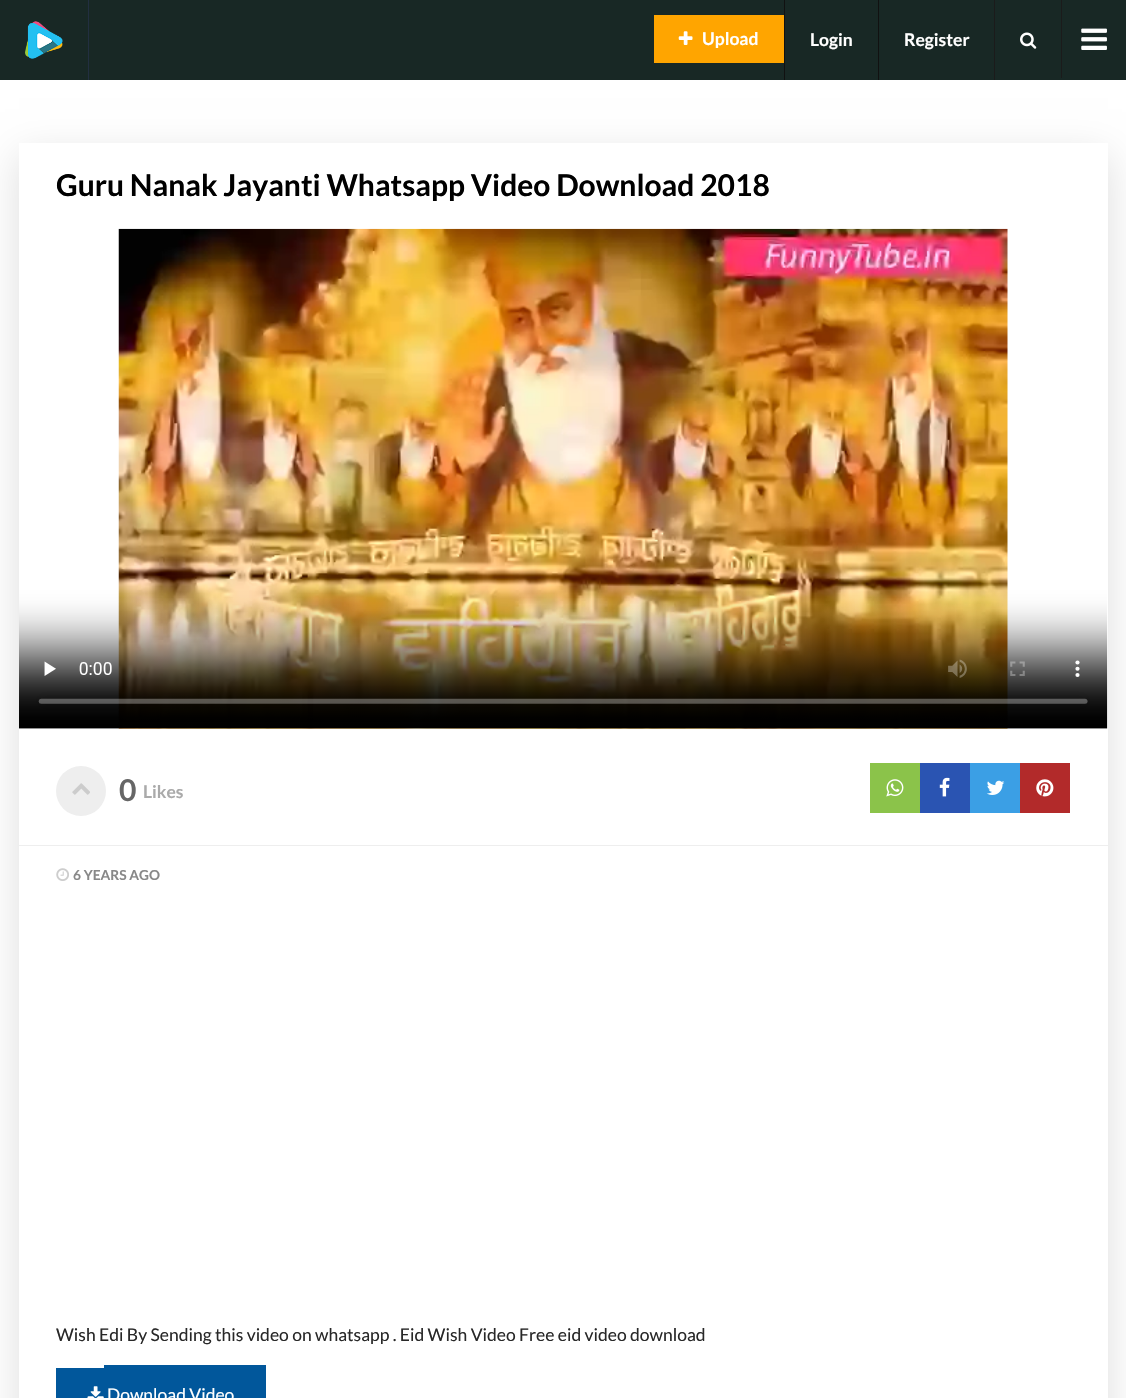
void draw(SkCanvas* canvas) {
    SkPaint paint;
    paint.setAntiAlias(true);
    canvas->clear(0xFFFFFFFF);
    paint.setColor(0xFF182825);
    canvas->drawRect(SkRect::MakeXYWH(0, 0, 1126, 80), paint);
    paint.setColor(0xFF222F40);
    canvas->drawRect(SkRect::MakeXYWH(88, 0, 1, 80), paint);
    canvas->drawImageRect(SkImages::DeferredFromEncodedData(SkData::MakeFromFileName("img1.png")), SkRect::MakeXYWH(25, 21, 38, 38), SkSamplingOptions());
    paint.setColor(0xFFFFA500);
    canvas->drawRect(SkRect::MakeXYWH(654, 15, 130, 48), paint);
    canvas->drawImageRect(SkImages::DeferredFromEncodedData(SkData::MakeFromFileName("img2.png")), SkRect::MakeXYWH(678, 31, 15, 14), SkSamplingOptions());
    SkFont font1(fontMgr->matchFamilyStyle("Lato", SkFontStyle::Bold()), 17.5f);
    font1.setSubpixel(true);
    paint.setColor(0xFFFFFFFF);
    canvas->drawString("Upload", 702, 45, font1, paint);
    paint.setColor(0xFF111111);
    canvas->drawRect(SkRect::MakeXYWH(784, 0, 1, 80), paint);
    paint.setColor(0xFFFFFFFF);
    canvas->drawString("Login", 810, 46, font1, paint);
    paint.setColor(0xFF111111);
    canvas->drawRect(SkRect::MakeXYWH(878, 0, 1, 80), paint);
    paint.setColor(0xFFFFFFFF);
    canvas->drawString("Register", 904, 46, font1, paint);
    paint.setColor(0xFF1B1B1B);
    canvas->drawRect(SkRect::MakeXYWH(994, 0, 1, 80), paint);
    canvas->drawImageRect(SkImages::DeferredFromEncodedData(SkData::MakeFromFileName("img3.png")), SkRect::MakeXYWH(1020, 32, 17, 17), SkSamplingOptions());
    canvas->drawRect(SkRect::MakeXYWH(1061, 0, 1, 78), paint);
    canvas->drawImageRect(SkImages::DeferredFromEncodedData(SkData::MakeFromFileName("img4.png")), SkRect::MakeXYWH(1081, 28, 26, 22), SkSamplingOptions());
    paint.setColor(0xFFDEDEDE);
    paint.setMaskFilter(SkMaskFilter::MakeBlur(kNormal_SkBlurStyle, 19));
    canvas->drawRect(SkRect::MakeXYWH(19, 155, 1089, 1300), paint);
    paint.setMaskFilter(nullptr);
    paint.setColor(0xFFFFFFFF);
    canvas->drawRect(SkRect::MakeXYWH(19, 143, 1089, 1255), paint);
    SkFont font2(fontMgr->matchFamilyStyle("Lato", SkFontStyle::Bold()), 30);
    font2.setSubpixel(true);
    paint.setColor(0xFF000000);
    canvas->drawString("Guru Nanak Jayanti Whatsapp Video Download 2018", 56, 196, font2, paint);
    canvas->drawImageRect(SkImages::DeferredFromEncodedData(SkData::MakeFromFileName("img5.png")), SkRect::MakeXYWH(19, 228, 1089, 501), SkSamplingOptions());
    paint.setColor(0xFFEEEEEE);
    canvas->drawCircle(81, 791, 25, paint);
    canvas->drawImageRect(SkImages::DeferredFromEncodedData(SkData::MakeFromFileName("img6.png")), SkRect::MakeXYWH(72, 783, 18, 12), SkSamplingOptions());
    paint.setColor(0xFF666666);
    canvas->drawString("0", 119, 801, font2, paint);
    paint.setColor(0xFFAAAAAA);
    canvas->drawString("Likes", 143, 798, font1, paint);
    paint.setColor(0xFF8BC34A);
    canvas->drawRect(SkRect::MakeXYWH(870, 763, 50, 50), paint);
    canvas->drawImageRect(SkImages::DeferredFromEncodedData(SkData::MakeFromFileName("img7.png")), SkRect::MakeXYWH(886, 779, 18, 18), SkSamplingOptions());
    paint.setColor(0xFF2A54B2);
    canvas->drawRect(SkRect::MakeXYWH(920, 763, 50, 50), paint);
    canvas->drawImageRect(SkImages::DeferredFromEncodedData(SkData::MakeFromFileName("img8.png")), SkRect::MakeXYWH(939, 777, 11, 20), SkSamplingOptions());
    paint.setColor(0xFF3B9FE5);
    canvas->drawRect(SkRect::MakeXYWH(970, 763, 50, 50), paint);
    canvas->drawImageRect(SkImages::DeferredFromEncodedData(SkData::MakeFromFileName("img9.png")), SkRect::MakeXYWH(987, 780, 18, 15), SkSamplingOptions());
    paint.setColor(0xFFB22A2A);
    canvas->drawRect(SkRect::MakeXYWH(1020, 763, 50, 50), paint);
    canvas->drawImageRect(SkImages::DeferredFromEncodedData(SkData::MakeFromFileName("img10.png")), SkRect::MakeXYWH(1036, 779, 18, 18), SkSamplingOptions());
    paint.setColor(0xFFEEEEEE);
    canvas->drawRect(SkRect::MakeXYWH(19, 845, 1089, 1), paint);
    canvas->drawImageRect(SkImages::DeferredFromEncodedData(SkData::MakeFromFileName("img11.png")), SkRect::MakeXYWH(56, 868, 13, 13), SkSamplingOptions());
    SkFont font3(fontMgr->matchFamilyStyle("Lato", SkFontStyle::Bold()), 13.75f);
    font3.setSubpixel(true);
    paint.setColor(0xFF888888);
    canvas->drawString("6 YEARS AGO", 73, 880, font3, paint);
    SkFont font4(fontMgr->matchFamilyStyle("Lato", SkFontStyle::Normal()), 17.5f);
    font4.setSubpixel(true);
    paint.setColor(0xFF282828);
    canvas->drawString("Wish Edi By Sending this video on whatsapp . Eid Wish Video Free eid video download", 56, 1341, font4, paint);
    paint.setColor(0xFF01579B);
    canvas->drawRect(SkRect::MakeXYWH(56, 1368, 48, 30), paint);
    canvas->drawRect(SkRect::MakeXYWH(104, 1365, 162, 33), paint);
    canvas->drawImageRect(SkImages::DeferredFromEncodedData(SkData::MakeFromFileName("img12.png")), SkRect::MakeXYWH(87, 1386, 17, 12), SkSamplingOptions());
    paint.setColor(0xFFFFFFFF);
    canvas->drawString("Download Video", 107, 1401, font4, paint);
}
